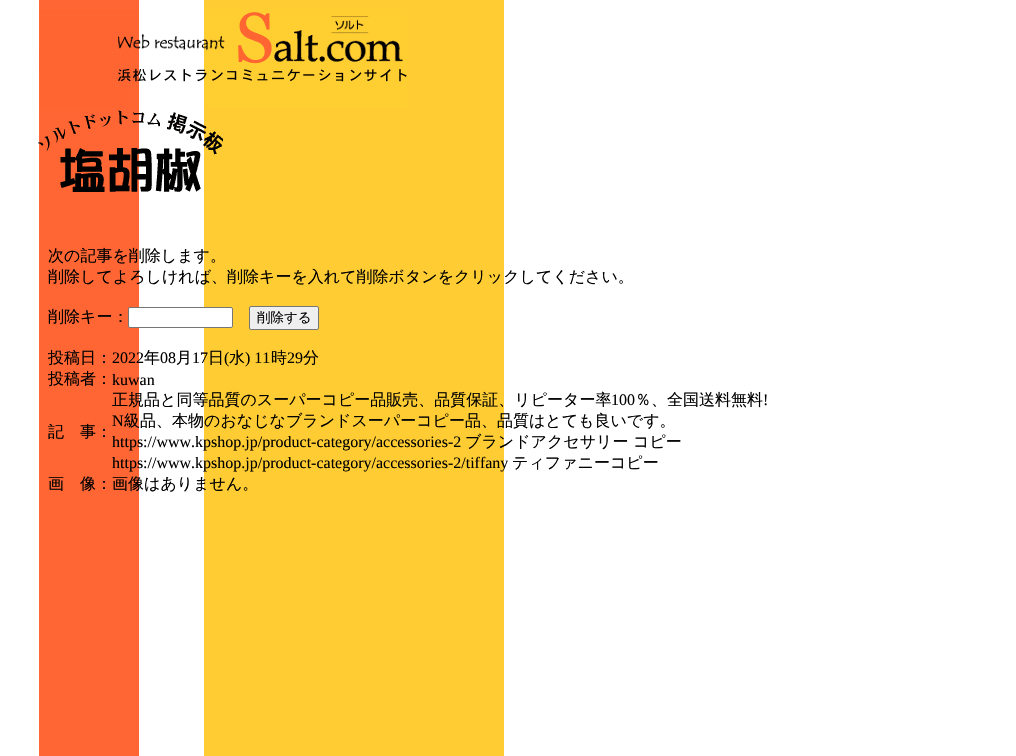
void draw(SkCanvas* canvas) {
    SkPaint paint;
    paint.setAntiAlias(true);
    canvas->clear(0xFFFFFFFF);
    canvas->drawImageRect(SkImages::DeferredFromEncodedData(SkData::MakeFromFileName("img1.png")), SkRect::MakeXYWH(39, 0, 465, 756), SkSamplingOptions());
    canvas->drawImageRect(SkImages::DeferredFromEncodedData(SkData::MakeFromFileName("img2.png")), SkRect::MakeXYWH(39, 9, 368, 99), SkSamplingOptions());
    canvas->drawImageRect(SkImages::DeferredFromEncodedData(SkData::MakeFromFileName("img3.png")), SkRect::MakeXYWH(38, 110, 185, 82), SkSamplingOptions());
    SkFont font1(fontMgr->matchFamilyStyle("WenQuanYi Zen Hei", SkFontStyle(500, SkFontStyle::kNormal_Width, SkFontStyle::kUpright_Slant)), 16);
    font1.setSubpixel(true);
    paint.setColor(0xFF000000);
    canvas->drawString("次の記事を削除します。", 48, 261, font1, paint);
    canvas->drawString("削除してよろしければ、削除キーを入れて削除ボタンをクリックしてください。", 48, 282, font1, paint);
    canvas->drawString("削除キー：", 48, 322, font1, paint);
    paint.setColor(0xFFFFFFFF);
    canvas->drawRoundRect(SkRect::MakeXYWH(128.5f, 307.5f, 104, 20), 1.5f, 1.5f, paint);
    paint.setStyle(SkPaint::kStroke_Style);
    paint.setStrokeWidth(1);
    paint.setColor(0xFF767676);
    canvas->drawRoundRect(SkRect::MakeXYWH(128.5f, 307.5f, 104, 20), 1.5f, 1.5f, paint);
    paint.setStyle(SkPaint::kFill_Style);
    paint.setColor(0xFFEFEFEF);
    canvas->drawRoundRect(SkRect::MakeXYWH(249.5f, 306.5f, 69, 23), 1.5f, 1.5f, paint);
    paint.setStyle(SkPaint::kStroke_Style);
    paint.setColor(0xFF767676);
    canvas->drawRoundRect(SkRect::MakeXYWH(249.5f, 306.5f, 69, 23), 1.5f, 1.5f, paint);
    SkFont font2(fontMgr->matchFamilyStyle("WenQuanYi Zen Hei", SkFontStyle(500, SkFontStyle::kNormal_Width, SkFontStyle::kUpright_Slant)), 13.5f);
    font2.setSubpixel(true);
    paint.setStyle(SkPaint::kFill_Style);
    paint.setColor(0xFF000000);
    canvas->drawString("削除する", 257, 322, font2, paint);
    canvas->drawString("投稿日：", 48, 363, font1, paint);
    SkFont font3(fontMgr->matchFamilyStyle("Liberation Serif", SkFontStyle::Normal()), 16);
    font3.setSubpixel(true);
    canvas->drawString("2022", 112, 363, font3, paint);
    canvas->drawString("年", 144, 363, font1, paint);
    canvas->drawString("08", 160, 363, font3, paint);
    canvas->drawString("月", 176, 363, font1, paint);
    canvas->drawString("17", 192, 363, font3, paint);
    canvas->drawString("日", 208, 363, font1, paint);
    canvas->drawString("(", 224, 363, font3, paint);
    canvas->drawString("水", 229, 363, font1, paint);
    canvas->drawString(") 11", 245, 363, font3, paint);
    canvas->drawString("時", 271, 363, font1, paint);
    canvas->drawString("29", 287, 363, font3, paint);
    canvas->drawString("分", 303, 363, font1, paint);
    canvas->drawString("投稿者：", 48, 384, font1, paint);
    canvas->drawString("kuwan", 112, 385, font3, paint);
    canvas->drawString("記　事：", 48, 437, font1, paint);
    canvas->drawString("正規品と同等品質のスーパーコピー品販売、品質保証、リピーター率", 112, 405, font1, paint);
    canvas->drawString("100", 611, 405, font3, paint);
    canvas->drawString("％、全国送料無料", 635, 405, font1, paint);
    canvas->drawString("!", 763, 405, font3, paint);
    canvas->drawString("N", 112, 426, font3, paint);
    canvas->drawString("級品、本物のおなじなブランドスーパーコピー品、品質はとても良いです。", 124, 426, font1, paint);
    canvas->drawString("https://www.kpshop.jp/product-category/accessories-2", 112, 447, font3, paint);
    canvas->drawString("ブランドアクセサリー", 465, 447, font1, paint);
    canvas->drawString("コピー", 633, 447, font1, paint);
    canvas->drawString("https://www.kpshop.jp/product-category/accessories-2/tiffany", 112, 468, font3, paint);
    canvas->drawString("ティファニーコピー", 512, 468, font1, paint);
    canvas->drawString("画　像：画像はありません。", 48, 489, font1, paint);
}
